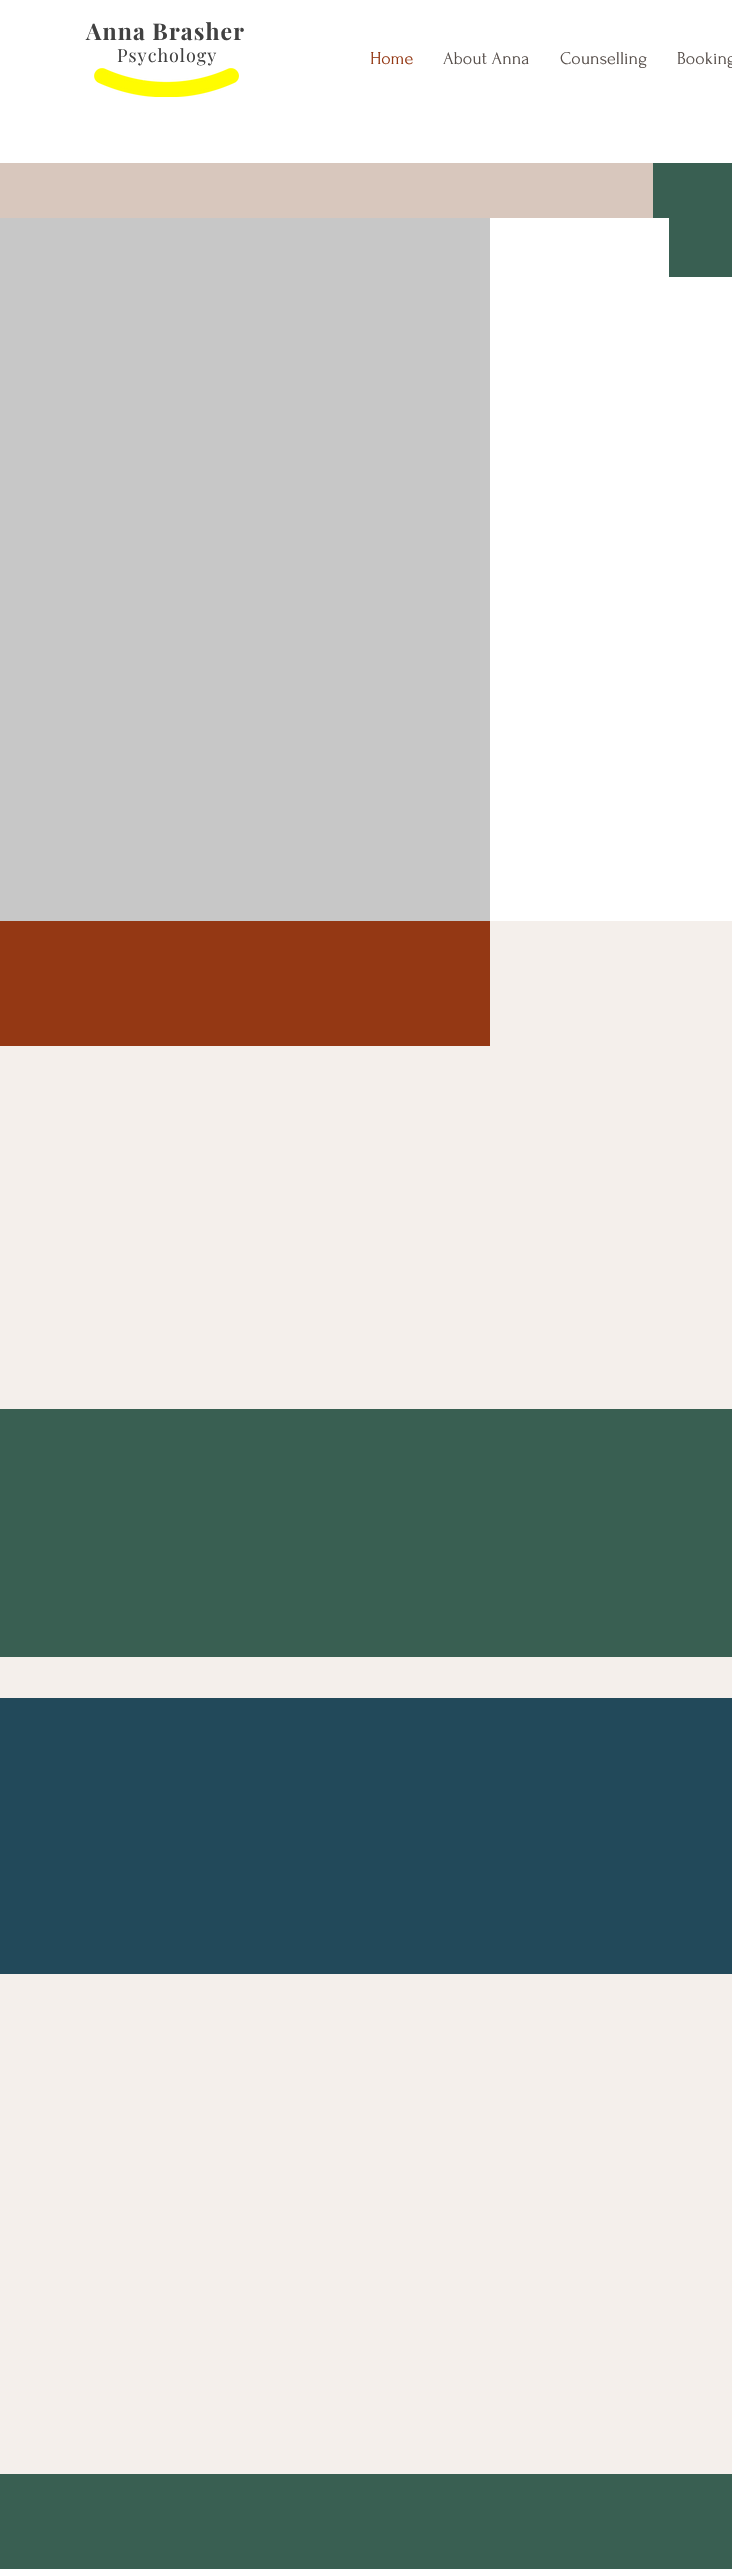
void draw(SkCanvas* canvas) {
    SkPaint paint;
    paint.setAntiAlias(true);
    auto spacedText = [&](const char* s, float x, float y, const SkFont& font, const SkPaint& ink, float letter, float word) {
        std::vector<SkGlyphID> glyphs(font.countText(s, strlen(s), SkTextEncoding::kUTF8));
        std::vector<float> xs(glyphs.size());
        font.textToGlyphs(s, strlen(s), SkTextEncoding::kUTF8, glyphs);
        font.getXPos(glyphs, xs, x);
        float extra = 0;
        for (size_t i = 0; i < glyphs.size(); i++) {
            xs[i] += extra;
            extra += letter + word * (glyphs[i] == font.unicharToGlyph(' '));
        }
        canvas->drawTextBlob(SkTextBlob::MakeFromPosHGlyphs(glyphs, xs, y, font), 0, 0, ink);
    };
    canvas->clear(0xFFF4EFEB);
    paint.setColor(0xFFFFFFFF);
    canvas->drawRect(SkRect::MakeXYWH(0, 0, 732, 163), paint);
    SkFont font1(fontMgr->matchFamilyStyle("Playfair Display", SkFontStyle::Bold()), 23);
    font1.setSubpixel(true);
    paint.setColor(0xFF414141);
    spacedText("Anna Brasher", 86, 40, font1, paint, 1.1f, 0);
    SkFont font2(fontMgr->matchFamilyStyle("Playfair Display", SkFontStyle::Normal()), 18);
    font2.setSubpixel(true);
    spacedText("Psychology", 117, 62, font2, paint, 1, 0);
    canvas->drawImageRect(SkImages::DeferredFromEncodedData(SkData::MakeFromFileName("img1.png")), SkRect::MakeXYWH(94, 68, 145, 29), SkSamplingOptions());
    SkFont font3(fontMgr->matchFamilyStyle("Forum", SkFontStyle::Normal()), 18);
    font3.setSubpixel(true);
    paint.setColor(0xFF943814);
    canvas->drawString("Home", 370, 64, font3, paint);
    paint.setColor(0xFF574F4B);
    canvas->drawString("About Anna", 443, 64, font3, paint);
    canvas->drawString("Counselling", 560, 64, font3, paint);
    canvas->drawString("Booking", 677, 64, font3, paint);
    paint.setColor(0xFFD8C7BD);
    canvas->drawRect(SkRect::MakeXYWH(0, 163, 653, 55), paint);
    paint.setColor(0xFF395F52);
    canvas->drawRect(SkRect::MakeXYWH(653, 163, 16, 55), paint);
    paint.setColor(0xFFFFFFFF);
    canvas->drawRect(SkRect::MakeXYWH(490, 218, 242, 703), paint);
    paint.setColor(0xFF395F52);
    canvas->drawRect(SkRect::MakeXYWH(669, 163, 63, 114), paint);
    paint.setColor(0xFFC7C7C7);
    canvas->drawRect(SkRect::MakeXYWH(0, 218, 490, 703), paint);
    paint.setColor(0xFF943814);
    canvas->drawRect(SkRect::MakeXYWH(0, 921, 490, 125), paint);
    paint.setColor(0xFF395F52);
    canvas->drawRect(SkRect::MakeXYWH(0, 1409, 732, 248), paint);
    paint.setColor(0xFF22495A);
    canvas->drawRect(SkRect::MakeXYWH(0, 1698, 732, 276), paint);
    paint.setColor(0xFF395F52);
    canvas->drawRect(SkRect::MakeXYWH(0, 2474, 732, 95), paint);
}
